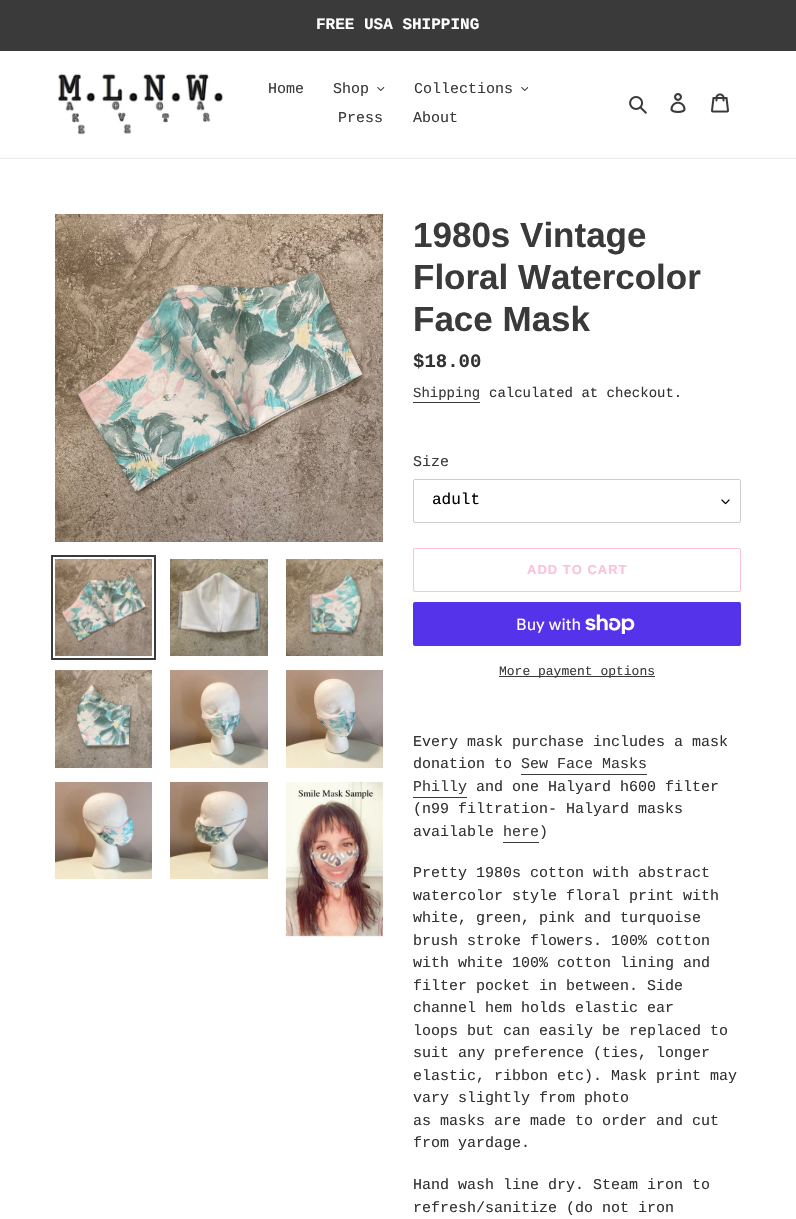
void draw(SkCanvas* canvas) {
    SkPaint paint;
    paint.setAntiAlias(true);
    auto spacedText = [&](const char* s, float x, float y, const SkFont& font, const SkPaint& ink, float letter, float word) {
        std::vector<SkGlyphID> glyphs(font.countText(s, strlen(s), SkTextEncoding::kUTF8));
        std::vector<float> xs(glyphs.size());
        font.textToGlyphs(s, strlen(s), SkTextEncoding::kUTF8, glyphs);
        font.getXPos(glyphs, xs, x);
        float extra = 0;
        for (size_t i = 0; i < glyphs.size(); i++) {
            xs[i] += extra;
            extra += letter + word * (glyphs[i] == font.unicharToGlyph(' '));
        }
        canvas->drawTextBlob(SkTextBlob::MakeFromPosHGlyphs(glyphs, xs, y, font), 0, 0, ink);
    };
    canvas->clear(0xFFFFFFFF);
    paint.setColor(0xFF3A3A3A);
    canvas->drawRect(SkRect::MakeXYWH(0, 0, 796, 51), paint);
    SkFont font1(fontMgr->matchFamilyStyle("Liberation Mono", SkFontStyle::Bold()), 16);
    font1.setSubpixel(true);
    paint.setColor(0xFFFFFFFF);
    canvas->drawString("FREE USA SHIPPING", 316, 29, font1, paint);
    paint.setColor(0xFFEBEBEB);
    canvas->drawRect(SkRect::MakeXYWH(0, 158, 796, 1), paint);
    canvas->drawImageRect(SkImages::DeferredFromEncodedData(SkData::MakeFromFileName("img1.png")), SkRect::MakeXYWH(57, 73, 167, 62), SkSamplingOptions());
    SkFont font2(fontMgr->matchFamilyStyle("Liberation Mono", SkFontStyle::Normal()), 15);
    font2.setSubpixel(true);
    paint.setColor(0xFF3A3A3A);
    canvas->drawString("Home", 268, 93, font2, paint);
    canvas->drawString("Shop", 333, 93, font2, paint);
    canvas->drawImageRect(SkImages::DeferredFromEncodedData(SkData::MakeFromFileName("img2.png")), SkRect::MakeXYWH(377, 87, 8, 4), SkSamplingOptions());
    canvas->drawString("Collections", 414, 93, font2, paint);
    canvas->drawImageRect(SkImages::DeferredFromEncodedData(SkData::MakeFromFileName("img3.png")), SkRect::MakeXYWH(521, 87, 7, 4), SkSamplingOptions());
    canvas->drawString("Press", 338, 122, font2, paint);
    canvas->drawString("About", 413, 122, font2, paint);
    canvas->drawImageRect(SkImages::DeferredFromEncodedData(SkData::MakeFromFileName("img4.png")), SkRect::MakeXYWH(629, 96, 18, 18), SkSamplingOptions());
    canvas->drawImageRect(SkImages::DeferredFromEncodedData(SkData::MakeFromFileName("img5.png")), SkRect::MakeXYWH(670, 93, 16, 20), SkSamplingOptions());
    canvas->drawImageRect(SkImages::DeferredFromEncodedData(SkData::MakeFromFileName("img6.png")), SkRect::MakeXYWH(711, 93, 18, 20), SkSamplingOptions());
    canvas->drawImageRect(SkImages::DeferredFromEncodedData(SkData::MakeFromFileName("img7.png")), SkRect::MakeXYWH(55, 214, 328, 328), SkSamplingOptions());
    paint.setStyle(SkPaint::kStroke_Style);
    paint.setStrokeWidth(2);
    canvas->drawRect(SkRect::MakeXYWH(52, 556, 103, 103), paint);
    canvas->drawImageRect(SkImages::DeferredFromEncodedData(SkData::MakeFromFileName("img8.png")), SkRect::MakeXYWH(55, 559, 97, 97), SkSamplingOptions());
    canvas->drawImageRect(SkImages::DeferredFromEncodedData(SkData::MakeFromFileName("img9.png")), SkRect::MakeXYWH(170, 559, 98, 97), SkSamplingOptions());
    canvas->drawImageRect(SkImages::DeferredFromEncodedData(SkData::MakeFromFileName("img10.png")), SkRect::MakeXYWH(286, 559, 97, 97), SkSamplingOptions());
    canvas->drawImageRect(SkImages::DeferredFromEncodedData(SkData::MakeFromFileName("img11.png")), SkRect::MakeXYWH(55, 670, 97, 98), SkSamplingOptions());
    canvas->drawImageRect(SkImages::DeferredFromEncodedData(SkData::MakeFromFileName("img12.png")), SkRect::MakeXYWH(170, 670, 98, 98), SkSamplingOptions());
    canvas->drawImageRect(SkImages::DeferredFromEncodedData(SkData::MakeFromFileName("img13.png")), SkRect::MakeXYWH(286, 670, 97, 98), SkSamplingOptions());
    canvas->drawImageRect(SkImages::DeferredFromEncodedData(SkData::MakeFromFileName("img14.png")), SkRect::MakeXYWH(55, 782, 97, 97), SkSamplingOptions());
    canvas->drawImageRect(SkImages::DeferredFromEncodedData(SkData::MakeFromFileName("img15.png")), SkRect::MakeXYWH(170, 782, 98, 97), SkSamplingOptions());
    canvas->drawImageRect(SkImages::DeferredFromEncodedData(SkData::MakeFromFileName("img16.png")), SkRect::MakeXYWH(285, 781, 98, 156), SkSamplingOptions());
    SkFont font3(fontMgr->matchFamilyStyle("Liberation Sans", SkFontStyle::Bold()), 35);
    font3.setSubpixel(true);
    paint.setStyle(SkPaint::kFill_Style);
    canvas->drawString("1980s Vintage", 413, 247, font3, paint);
    canvas->drawString("Floral Watercolor", 413, 289, font3, paint);
    canvas->drawString("Face Mask", 413, 331, font3, paint);
    SkFont font4(fontMgr->matchFamilyStyle("Liberation Mono", SkFontStyle::Bold()), 19);
    font4.setSubpixel(true);
    paint.setColor(0xFF333232);
    canvas->drawString("$18.00", 413, 367, font4, paint);
    SkFont font5(fontMgr->matchFamilyStyle("Liberation Mono", SkFontStyle::Normal()), 14);
    font5.setSubpixel(true);
    paint.setColor(0xFF3A3A3A);
    canvas->drawString("Shipping", 413, 397, font5, paint);
    canvas->drawRect(SkRect::MakeXYWH(413, 402, 67, 1), paint);
    paint.setColor(0xFF333232);
    canvas->drawString("calculated at checkout.", 489, 397, font5, paint);
    paint.setColor(0xFF3A3A3A);
    canvas->drawString("Size", 413, 466, font2, paint);
    canvas->drawImageRect(SkImages::DeferredFromEncodedData(SkData::MakeFromFileName("img17.png")), SkRect::MakeXYWH(721, 499, 9, 6), SkSamplingOptions());
    paint.setStyle(SkPaint::kStroke_Style);
    paint.setStrokeWidth(1);
    paint.setColor(0xFFCCCCCC);
    canvas->drawRoundRect(SkRect::MakeXYWH(413.5f, 479.5f, 327, 43), 1.5f, 1.5f, paint);
    SkFont font6(fontMgr->matchFamilyStyle("Liberation Mono", SkFontStyle::Normal()), 16);
    font6.setSubpixel(true);
    paint.setStyle(SkPaint::kFill_Style);
    paint.setColor(0xFF000000);
    canvas->drawString("adult", 432, 504, font6, paint);
    paint.setStyle(SkPaint::kStroke_Style);
    paint.setColor(0xFFFCC1DB);
    canvas->drawRoundRect(SkRect::MakeXYWH(413.5f, 548.5f, 327, 43), 1.5f, 1.5f, paint);
    SkFont font7(fontMgr->matchFamilyStyle("Liberation Sans", SkFontStyle::Bold()), 13);
    font7.setSubpixel(true);
    paint.setStyle(SkPaint::kFill_Style);
    spacedText("ADD TO CART", 527, 574, font7, paint, 1, 0);
    paint.setColor(0xFF5433EB);
    canvas->drawRoundRect(SkRect::MakeXYWH(413, 602, 328, 44), 2, 2, paint);
    SkFont font8(fontMgr->matchFamilyStyle("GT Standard", SkFontStyle::Normal()), 16);
    font8.setSubpixel(true);
    paint.setColor(0xFFFFFFFF);
    canvas->drawString("Buy with", 516, 630, font8, paint);
    canvas->drawImageRect(SkImages::DeferredFromEncodedData(SkData::MakeFromFileName("img18.png")), SkRect::MakeXYWH(585, 614, 50, 20), SkSamplingOptions());
    paint.setColor(0xFF3A3A3A);
    canvas->drawRect(SkRect::MakeXYWH(499, 676, 156, 1), paint);
    SkFont font9(fontMgr->matchFamilyStyle("Liberation Mono", SkFontStyle::Normal()), 13);
    font9.setSubpixel(true);
    canvas->drawString("More payment options", 499, 675, font9, paint);
    paint.setColor(0xFF333232);
    canvas->drawString("Every mask purchase includes a mask", 413, 746, font2, paint);
    canvas->drawString("donation to", 413, 768, font2, paint);
    paint.setColor(0xFF3A3A3A);
    canvas->drawString("Sew Face Masks", 521, 768, font2, paint);
    canvas->drawRect(SkRect::MakeXYWH(521, 774, 126, 1), paint);
    canvas->drawString("Philly", 413, 791, font2, paint);
    canvas->drawRect(SkRect::MakeXYWH(413, 797, 54, 1), paint);
    paint.setColor(0xFF333232);
    canvas->drawString("and one Halyard h600 filter", 476, 791, font2, paint);
    canvas->drawString("(n99 filtration- Halyard masks", 413, 813, font2, paint);
    canvas->drawString("available", 413, 836, font2, paint);
    paint.setColor(0xFF3A3A3A);
    canvas->drawString("here", 503, 836, font2, paint);
    canvas->drawRect(SkRect::MakeXYWH(503, 842, 36, 1), paint);
    paint.setColor(0xFF333232);
    canvas->drawString(")", 539, 836, font2, paint);
    canvas->drawString("Pretty 1980s cotton with abstract", 413, 877, font2, paint);
    canvas->drawString("watercolor style floral print with", 413, 900, font2, paint);
    canvas->drawString("white, green, pink and turquoise", 413, 922, font2, paint);
    canvas->drawString("brush stroke flowers. 100% cotton", 413, 945, font2, paint);
    canvas->drawString("with white 100% cotton lining and", 413, 967, font2, paint);
    canvas->drawString("filter pocket in between. Side", 413, 990, font2, paint);
    canvas->drawString("channel hem holds elastic ear", 413, 1012, font2, paint);
    canvas->drawString("loops but can easily be replaced to", 413, 1035, font2, paint);
    canvas->drawString("suit any preference (ties, longer", 413, 1057, font2, paint);
    canvas->drawString("elastic, ribbon etc). Mask print may", 413, 1080, font2, paint);
    canvas->drawString("vary slightly from photo", 413, 1102, font2, paint);
    canvas->drawString("as masks are made to order and cut", 413, 1125, font2, paint);
    canvas->drawString("from yardage.", 413, 1147, font2, paint);
    canvas->drawString("Hand wash line dry. Steam iron to", 413, 1189, font2, paint);
    canvas->drawString("refresh/sanitize (do not iron", 413, 1212, font2, paint);
}
